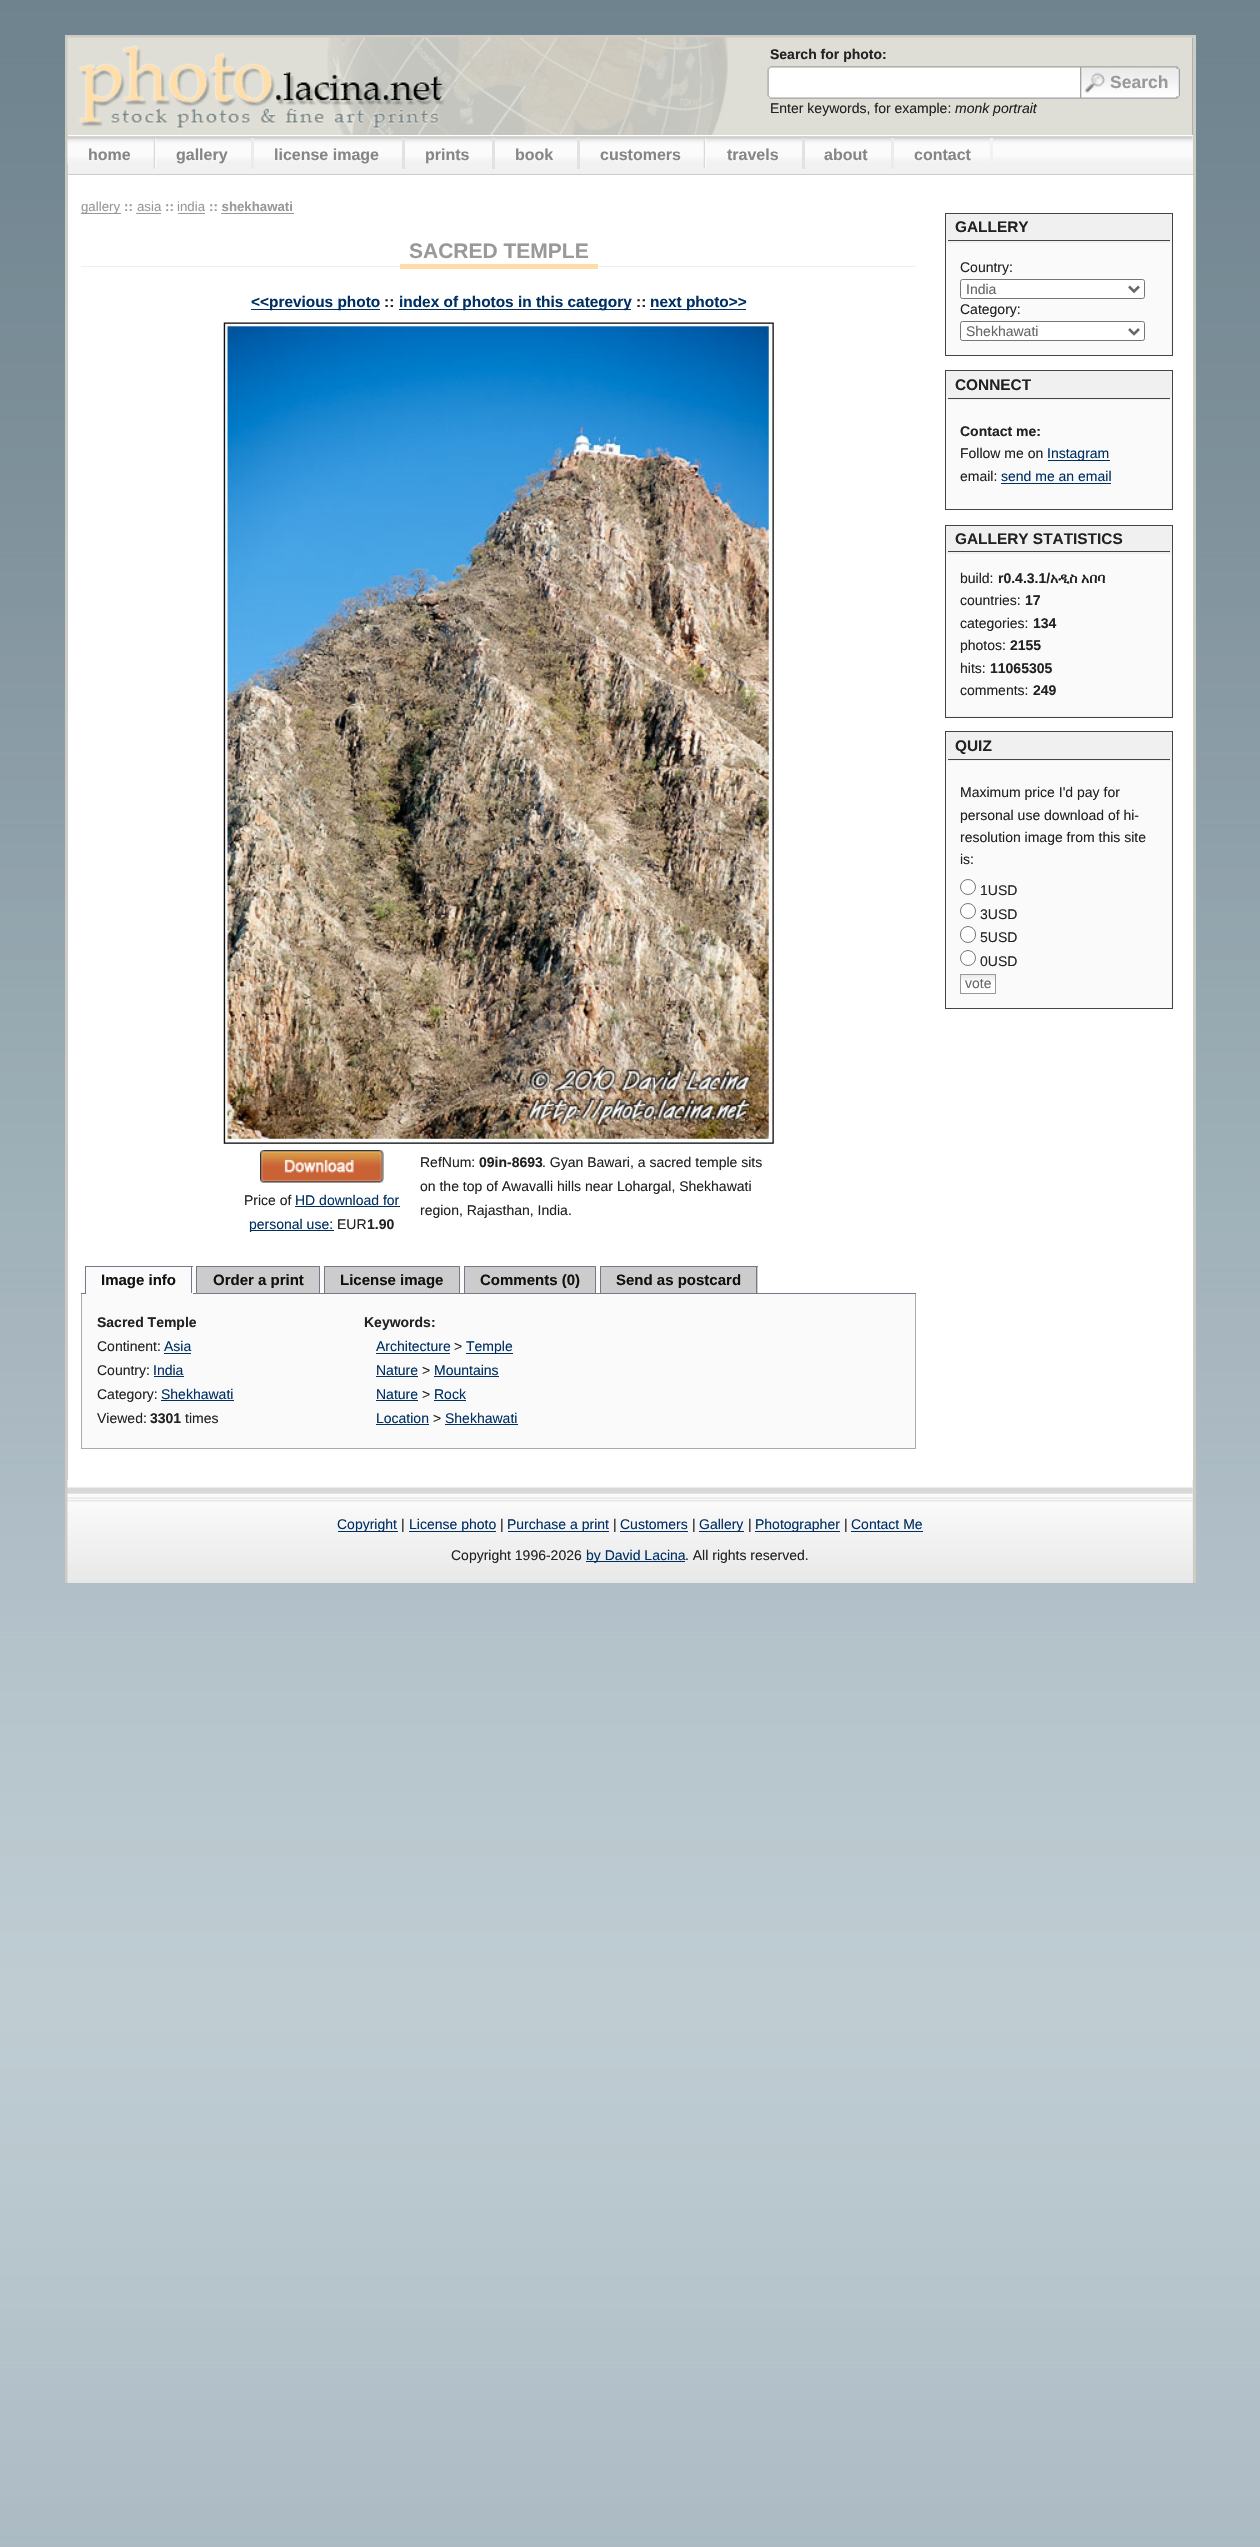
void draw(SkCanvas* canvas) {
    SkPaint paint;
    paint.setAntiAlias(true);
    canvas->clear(0xFFFFFFFF);
    canvas->drawImageRect(SkImages::DeferredFromEncodedData(SkData::MakeFromFileName("img1.png")), SkRect::MakeXYWH(0, 0, 1260, 2547), SkSamplingOptions());
    paint.setColor(0xFFCCCCC5);
    canvas->drawRect(SkRect::MakeXYWH(65, 35, 1130, 3), paint);
    canvas->drawRect(SkRect::MakeXYWH(1193, 35, 3, 1548), paint);
    canvas->drawRect(SkRect::MakeXYWH(65, 35, 3, 1548), paint);
    canvas->drawImageRect(SkImages::DeferredFromEncodedData(SkData::MakeFromFileName("img2.png")), SkRect::MakeXYWH(67, 37, 1126, 98), SkSamplingOptions());
    SkFont font1(fontMgr->matchFamilyStyle("Liberation Sans", SkFontStyle::Bold()), 14);
    font1.setSubpixel(true);
    paint.setColor(0xFF222222);
    canvas->drawString("Search for photo:", 770, 59, font1, paint);
    canvas->drawImageRect(SkImages::DeferredFromEncodedData(SkData::MakeFromFileName("img3.png")), SkRect::MakeXYWH(767, 66, 313, 33), SkSamplingOptions());
    canvas->drawImageRect(SkImages::DeferredFromEncodedData(SkData::MakeFromFileName("img4.png")), SkRect::MakeXYWH(1080, 66, 100, 33), SkSamplingOptions());
    SkFont font2(fontMgr->matchFamilyStyle("Liberation Sans", SkFontStyle::Bold()), 17.5f);
    font2.setSubpixel(true);
    paint.setColor(0xFF999999);
    canvas->drawString("Search", 1110, 88, font2, paint);
    SkFont font3(fontMgr->matchFamilyStyle("Liberation Sans", SkFontStyle::Normal()), 14);
    font3.setSubpixel(true);
    paint.setColor(0xFF222222);
    canvas->drawString("Enter keywords, for example:", 770, 113, font3, paint);
    SkFont font4(fontMgr->matchFamilyStyle("Liberation Sans", SkFontStyle::Italic()), 14);
    font4.setSubpixel(true);
    canvas->drawString("monk portrait", 955, 113, font4, paint);
    paint.setColor(0xFFF1F1F1);
    canvas->drawRect(SkRect::MakeXYWH(68, 136, 1125, 38), paint);
    canvas->drawImageRect(SkImages::DeferredFromEncodedData(SkData::MakeFromFileName("img5.png")), SkRect::MakeXYWH(67, 136, 1126, 28), SkSamplingOptions());
    paint.setColor(0xFFFFFFFF);
    canvas->drawRect(SkRect::MakeXYWH(68, 135, 1125, 1), paint);
    paint.setColor(0xFFCCCCCC);
    canvas->drawRect(SkRect::MakeXYWH(68, 174, 1125, 1), paint);
    SkFont font5(fontMgr->matchFamilyStyle("Liberation Sans", SkFontStyle::Bold()), 16);
    font5.setSubpixel(true);
    paint.setColor(0xFF868686);
    canvas->drawString("home", 88, 160, font5, paint);
    canvas->drawImageRect(SkImages::DeferredFromEncodedData(SkData::MakeFromFileName("img6.png")), SkRect::MakeXYWH(153, 138, 4, 31), SkSamplingOptions());
    canvas->drawString("gallery", 176, 160, font5, paint);
    paint.setColor(0xFFECEBEB);
    canvas->drawRect(SkRect::MakeXYWH(251, 138, 3, 31), paint);
    paint.setColor(0xFF868686);
    canvas->drawString("license image", 274, 160, font5, paint);
    paint.setColor(0xFFE3E1E1);
    canvas->drawRect(SkRect::MakeXYWH(402, 138, 3, 31), paint);
    paint.setColor(0xFF868686);
    canvas->drawString("prints", 425, 160, font5, paint);
    paint.setColor(0xFFE3E1E1);
    canvas->drawRect(SkRect::MakeXYWH(492, 138, 3, 31), paint);
    paint.setColor(0xFF868686);
    canvas->drawString("book", 515, 160, font5, paint);
    paint.setColor(0xFFE3E1E1);
    canvas->drawRect(SkRect::MakeXYWH(577, 138, 3, 31), paint);
    paint.setColor(0xFF868686);
    canvas->drawString("customers", 600, 160, font5, paint);
    canvas->drawImageRect(SkImages::DeferredFromEncodedData(SkData::MakeFromFileName("img6.png")), SkRect::MakeXYWH(703, 138, 4, 31), SkSamplingOptions());
    canvas->drawString("travels", 727, 160, font5, paint);
    paint.setColor(0xFFE3E1E1);
    canvas->drawRect(SkRect::MakeXYWH(802, 138, 3, 31), paint);
    paint.setColor(0xFF868686);
    canvas->drawString("about", 824, 160, font5, paint);
    paint.setColor(0xFFECEBEB);
    canvas->drawRect(SkRect::MakeXYWH(891, 138, 3, 31), paint);
    paint.setColor(0xFF868686);
    canvas->drawString("contact", 914, 160, font5, paint);
    paint.setColor(0xFFF3F2F2);
    canvas->drawRect(SkRect::MakeXYWH(990, 138, 3, 31), paint);
    paint.setColor(0xFFFFFFFF);
    canvas->drawRect(SkRect::MakeXYWH(68, 175, 1125, 1305), paint);
    paint.setColor(0xFF999999);
    canvas->drawRect(SkRect::MakeXYWH(81, 213, 40, 1), paint);
    SkFont font6(fontMgr->matchFamilyStyle("Liberation Sans", SkFontStyle::Normal()), 13.25f);
    font6.setSubpixel(true);
    canvas->drawString("gallery", 81, 211, font6, paint);
    SkFont font7(fontMgr->matchFamilyStyle("Liberation Sans", SkFontStyle::Bold()), 13.25f);
    font7.setSubpixel(true);
    canvas->drawString("::", 124, 211, font7, paint);
    canvas->drawString("asia", 137, 211, font6, paint);
    canvas->drawRect(SkRect::MakeXYWH(136, 213, 25, 1), paint);
    canvas->drawString("::", 165, 211, font7, paint);
    canvas->drawString("india", 177, 211, font6, paint);
    canvas->drawRect(SkRect::MakeXYWH(178, 213, 27, 1), paint);
    canvas->drawString(":: shekhawati", 209, 211, font7, paint);
    canvas->drawRect(SkRect::MakeXYWH(221, 213, 73, 1), paint);
    paint.setColor(0xFFF0F0F0);
    canvas->drawRect(SkRect::MakeXYWH(81, 266, 835, 1), paint);
    SkFont font8(fontMgr->matchFamilyStyle("Liberation Sans", SkFontStyle::Bold()), 21);
    font8.setSubpixel(true);
    paint.setColor(0xFF999999);
    canvas->drawString("SACRED TEMPLE", 409, 258, font8, paint);
    paint.setColor(0xFFFFDDAA);
    canvas->drawRect(SkRect::MakeXYWH(400, 264, 198, 5), paint);
    paint.setColor(0xFF003063);
    canvas->drawRect(SkRect::MakeXYWH(251, 309, 129, 1), paint);
    SkFont font9(fontMgr->matchFamilyStyle("Liberation Sans", SkFontStyle::Bold()), 15.4f);
    font9.setSubpixel(true);
    canvas->drawString("<<previous photo", 251, 307, font9, paint);
    paint.setColor(0xFF222222);
    canvas->drawString("::", 384, 307, font9, paint);
    paint.setColor(0xFF003063);
    canvas->drawRect(SkRect::MakeXYWH(399, 309, 232, 1), paint);
    canvas->drawString("index of photos in this category", 399, 307, font9, paint);
    paint.setColor(0xFF222222);
    canvas->drawString("::", 636, 307, font9, paint);
    paint.setColor(0xFF003063);
    canvas->drawRect(SkRect::MakeXYWH(650, 309, 96, 1), paint);
    canvas->drawString("next photo>>", 650, 307, font9, paint);
    canvas->drawImageRect(SkImages::DeferredFromEncodedData(SkData::MakeFromFileName("img7.png")), SkRect::MakeXYWH(223, 322, 551, 822), SkSamplingOptions());
    canvas->drawImageRect(SkImages::DeferredFromEncodedData(SkData::MakeFromFileName("img8.png")), SkRect::MakeXYWH(260, 1150, 124, 33), SkSamplingOptions());
    paint.setColor(0xFF222222);
    canvas->drawString("Price of", 244, 1205, font3, paint);
    paint.setColor(0xFF003063);
    canvas->drawString("HD download for", 295, 1205, font3, paint);
    canvas->drawRect(SkRect::MakeXYWH(295, 1206, 105, 1), paint);
    canvas->drawRect(SkRect::MakeXYWH(250, 1230, 84, 1), paint);
    canvas->drawString("personal use:", 249, 1229, font3, paint);
    paint.setColor(0xFF222222);
    canvas->drawString("EUR", 337, 1229, font3, paint);
    canvas->drawString("1.90", 367, 1229, font1, paint);
    canvas->drawString("RefNum:", 420, 1167, font3, paint);
    canvas->drawString("09in-8693", 479, 1167, font1, paint);
    canvas->drawString(". Gyan Bawari, a sacred temple sits", 542, 1167, font3, paint);
    canvas->drawString("on the top of Awavalli hills near Lohargal, Shekhawati", 420, 1191, font3, paint);
    canvas->drawString("region, Rajasthan, India.", 420, 1215, font3, paint);
    paint.setColor(0xFF777788);
    canvas->drawRect(SkRect::MakeXYWH(81, 1293, 835, 1), paint);
    paint.setColor(0xFFFAFAFA);
    canvas->drawRect(SkRect::MakeXYWH(86, 1267, 107, 26), paint);
    SkFont font10(fontMgr->matchFamilyStyle("Liberation Sans", SkFontStyle::Bold()), 15);
    font10.setSubpixel(true);
    paint.setColor(0xFF111111);
    canvas->drawString("Image info", 101, 1285, font10, paint);
    paint.setColor(0xFFFAFAFA);
    canvas->drawRect(SkRect::MakeXYWH(81, 1271, 4, 18), paint);
    paint.setColor(0xFF777788);
    canvas->drawRect(SkRect::MakeXYWH(85, 1266, 108, 1), paint);
    canvas->drawRect(SkRect::MakeXYWH(191, 1266, 1, 28), paint);
    paint.setColor(0xFFFAFAFA);
    canvas->drawRect(SkRect::MakeXYWH(85, 1293, 108, 1), paint);
    paint.setColor(0xFF777788);
    canvas->drawRect(SkRect::MakeXYWH(85, 1266, 1, 28), paint);
    paint.setColor(0xFFCCCCCC);
    canvas->drawRect(SkRect::MakeXYWH(197, 1267, 122, 26), paint);
    paint.setColor(0xFF111111);
    canvas->drawString("Order a print", 213, 1285, font10, paint);
    paint.setColor(0xFFFAFAFA);
    canvas->drawRect(SkRect::MakeXYWH(193, 1271, 3, 18), paint);
    paint.setColor(0xFF777788);
    canvas->drawRect(SkRect::MakeXYWH(196, 1266, 124, 1), paint);
    canvas->drawRect(SkRect::MakeXYWH(319, 1266, 1, 27), paint);
    canvas->drawRect(SkRect::MakeXYWH(196, 1266, 1, 27), paint);
    paint.setColor(0xFFCCCCCC);
    canvas->drawRect(SkRect::MakeXYWH(325, 1267, 134, 26), paint);
    paint.setColor(0xFF111111);
    canvas->drawString("License image", 340, 1285, font10, paint);
    paint.setColor(0xFFFAFAFA);
    canvas->drawRect(SkRect::MakeXYWH(320, 1271, 4, 18), paint);
    paint.setColor(0xFF777788);
    canvas->drawRect(SkRect::MakeXYWH(324, 1266, 136, 1), paint);
    canvas->drawRect(SkRect::MakeXYWH(459, 1266, 1, 27), paint);
    canvas->drawRect(SkRect::MakeXYWH(324, 1266, 1, 27), paint);
    paint.setColor(0xFFCCCCCC);
    canvas->drawRect(SkRect::MakeXYWH(465, 1267, 130, 26), paint);
    paint.setColor(0xFF111111);
    canvas->drawString("Comments (0)", 480, 1285, font10, paint);
    paint.setColor(0xFFFAFAFA);
    canvas->drawRect(SkRect::MakeXYWH(460, 1271, 4, 18), paint);
    paint.setColor(0xFF777788);
    canvas->drawRect(SkRect::MakeXYWH(464, 1266, 132, 1), paint);
    canvas->drawRect(SkRect::MakeXYWH(595, 1266, 1, 27), paint);
    canvas->drawRect(SkRect::MakeXYWH(464, 1266, 1, 27), paint);
    paint.setColor(0xFFCCCCCC);
    canvas->drawRect(SkRect::MakeXYWH(601, 1267, 157, 26), paint);
    paint.setColor(0xFF111111);
    canvas->drawString("Send as postcard", 616, 1285, font10, paint);
    paint.setColor(0xFFFAFAFA);
    canvas->drawRect(SkRect::MakeXYWH(596, 1271, 4, 18), paint);
    paint.setColor(0xFF777788);
    canvas->drawRect(SkRect::MakeXYWH(600, 1266, 158, 1), paint);
    canvas->drawRect(SkRect::MakeXYWH(756, 1266, 1, 27), paint);
    canvas->drawRect(SkRect::MakeXYWH(600, 1266, 1, 27), paint);
    paint.setColor(0xFFFAFAFA);
    canvas->drawRect(SkRect::MakeXYWH(82, 1294, 833, 154), paint);
    paint.setColor(0xFFAAAAAA);
    canvas->drawRect(SkRect::MakeXYWH(915, 1294, 1, 155), paint);
    canvas->drawRect(SkRect::MakeXYWH(81, 1448, 835, 1), paint);
    canvas->drawRect(SkRect::MakeXYWH(81, 1294, 1, 155), paint);
    paint.setColor(0xFF222222);
    canvas->drawString("Sacred Temple", 97, 1327, font1, paint);
    canvas->drawString("Continent:", 97, 1351, font3, paint);
    paint.setColor(0xFF003063);
    canvas->drawString("Asia", 164, 1351, font3, paint);
    canvas->drawRect(SkRect::MakeXYWH(164, 1353, 27, 1), paint);
    paint.setColor(0xFF222222);
    canvas->drawString("Country:", 97, 1375, font3, paint);
    paint.setColor(0xFF003063);
    canvas->drawString("India", 153, 1375, font3, paint);
    canvas->drawRect(SkRect::MakeXYWH(154, 1376, 30, 1), paint);
    paint.setColor(0xFF222222);
    canvas->drawString("Category:", 97, 1399, font3, paint);
    paint.setColor(0xFF003063);
    canvas->drawString("Shekhawati", 161, 1399, font3, paint);
    canvas->drawRect(SkRect::MakeXYWH(161, 1400, 73, 1), paint);
    paint.setColor(0xFF222222);
    canvas->drawString("Viewed:", 97, 1423, font3, paint);
    canvas->drawString("3301", 150, 1423, font1, paint);
    canvas->drawString("times", 185, 1423, font3, paint);
    canvas->drawString("Keywords:", 364, 1327, font1, paint);
    paint.setColor(0xFF003063);
    canvas->drawString("Architecture", 376, 1351, font3, paint);
    canvas->drawRect(SkRect::MakeXYWH(376, 1353, 74, 1), paint);
    paint.setColor(0xFF222222);
    canvas->drawString(">", 454, 1351, font3, paint);
    paint.setColor(0xFF003063);
    canvas->drawRect(SkRect::MakeXYWH(466, 1353, 47, 1), paint);
    canvas->drawString("Temple", 466, 1351, font3, paint);
    canvas->drawString("Nature", 376, 1375, font3, paint);
    canvas->drawRect(SkRect::MakeXYWH(376, 1376, 42, 1), paint);
    paint.setColor(0xFF222222);
    canvas->drawString(">", 422, 1375, font3, paint);
    paint.setColor(0xFF003063);
    canvas->drawString("Mountains", 434, 1375, font3, paint);
    canvas->drawRect(SkRect::MakeXYWH(434, 1376, 65, 1), paint);
    canvas->drawString("Nature", 376, 1399, font3, paint);
    canvas->drawRect(SkRect::MakeXYWH(376, 1400, 42, 1), paint);
    paint.setColor(0xFF222222);
    canvas->drawString(">", 422, 1399, font3, paint);
    paint.setColor(0xFF003063);
    canvas->drawString("Rock", 434, 1399, font3, paint);
    canvas->drawRect(SkRect::MakeXYWH(434, 1400, 32, 1), paint);
    canvas->drawString("Location", 376, 1423, font3, paint);
    canvas->drawRect(SkRect::MakeXYWH(376, 1424, 53, 1), paint);
    paint.setColor(0xFF222222);
    canvas->drawString(">", 433, 1423, font3, paint);
    paint.setColor(0xFF003063);
    canvas->drawString("Shekhawati", 445, 1423, font3, paint);
    canvas->drawRect(SkRect::MakeXYWH(445, 1424, 73, 1), paint);
    paint.setColor(0xFFF0F0F0);
    canvas->drawRect(SkRect::MakeXYWH(945.5f, 213.5f, 227, 142), paint);
    paint.setStyle(SkPaint::kStroke_Style);
    paint.setStrokeWidth(1);
    paint.setColor(0xFF444444);
    canvas->drawRect(SkRect::MakeXYWH(945.5f, 213.5f, 227, 142), paint);
    paint.setStyle(SkPaint::kFill_Style);
    canvas->drawRect(SkRect::MakeXYWH(948, 240, 222, 1), paint);
    paint.setColor(0xFF222222);
    canvas->drawString("GALLERY", 955, 232, font9, paint);
    paint.setColor(0xFFFAFAFA);
    canvas->drawRect(SkRect::MakeXYWH(946, 243, 225, 112), paint);
    paint.setColor(0xFF222222);
    canvas->drawString("Country:", 960, 272, font3, paint);
    paint.setColor(0xFFFFFFFF);
    canvas->drawRoundRect(SkRect::MakeXYWH(960.5f, 279.5f, 184, 19), 2, 2, paint);
    paint.setStyle(SkPaint::kStroke_Style);
    paint.setColor(0xFF767676);
    canvas->drawRoundRect(SkRect::MakeXYWH(960.5f, 279.5f, 184, 19), 2, 2, paint);
    paint.setStrokeWidth(2.5f);
    paint.setColor(0xFF666666);
    canvas->drawPath(SkPathBuilder().moveTo(1129, 286.5f).lineTo(1134, 291.5f).lineTo(1139, 286.5f).detach(), paint);
    paint.setStyle(SkPaint::kFill_Style);
    canvas->drawString("India", 966, 294, font3, paint);
    paint.setColor(0xFF222222);
    canvas->drawString("Category:", 960, 314, font3, paint);
    paint.setColor(0xFFFFFFFF);
    canvas->drawRoundRect(SkRect::MakeXYWH(960.5f, 321.5f, 184, 19), 2, 2, paint);
    paint.setStyle(SkPaint::kStroke_Style);
    paint.setStrokeWidth(1);
    paint.setColor(0xFF767676);
    canvas->drawRoundRect(SkRect::MakeXYWH(960.5f, 321.5f, 184, 19), 2, 2, paint);
    paint.setStrokeWidth(2.5f);
    paint.setColor(0xFF666666);
    canvas->drawPath(SkPathBuilder().moveTo(1129, 329).lineTo(1134, 334).lineTo(1139, 329).detach(), paint);
    paint.setStyle(SkPaint::kFill_Style);
    canvas->drawString("Shekhawati", 966, 336, font3, paint);
    paint.setColor(0xFFF0F0F0);
    canvas->drawRect(SkRect::MakeXYWH(945.5f, 370.5f, 227, 139), paint);
    paint.setStyle(SkPaint::kStroke_Style);
    paint.setStrokeWidth(1);
    paint.setColor(0xFF444444);
    canvas->drawRect(SkRect::MakeXYWH(945.5f, 370.5f, 227, 139), paint);
    paint.setStyle(SkPaint::kFill_Style);
    canvas->drawRect(SkRect::MakeXYWH(948, 398, 222, 1), paint);
    paint.setColor(0xFF222222);
    canvas->drawString("CONNECT", 955, 390, font9, paint);
    paint.setColor(0xFFFAFAFA);
    canvas->drawRect(SkRect::MakeXYWH(946, 400, 225, 109), paint);
    paint.setColor(0xFF222222);
    canvas->drawString("Contact me:", 960, 436, font1, paint);
    canvas->drawString("Follow me on", 960, 458, font3, paint);
    paint.setColor(0xFF003063);
    canvas->drawRect(SkRect::MakeXYWH(1048, 460, 62, 1), paint);
    canvas->drawString("Instagram", 1047, 458, font3, paint);
    paint.setColor(0xFF222222);
    canvas->drawString("email:", 960, 481, font3, paint);
    paint.setColor(0xFF003063);
    canvas->drawString("send me an email", 1001, 481, font3, paint);
    canvas->drawRect(SkRect::MakeXYWH(1001, 483, 110, 1), paint);
    paint.setColor(0xFFF0F0F0);
    canvas->drawRect(SkRect::MakeXYWH(945.5f, 525.5f, 227, 192), paint);
    paint.setStyle(SkPaint::kStroke_Style);
    paint.setColor(0xFF444444);
    canvas->drawRect(SkRect::MakeXYWH(945.5f, 525.5f, 227, 192), paint);
    paint.setStyle(SkPaint::kFill_Style);
    canvas->drawRect(SkRect::MakeXYWH(948, 551, 222, 1), paint);
    paint.setColor(0xFF222222);
    canvas->drawString("GALLERY STATISTICS", 955, 544, font9, paint);
    paint.setColor(0xFFFAFAFA);
    canvas->drawRect(SkRect::MakeXYWH(946, 554, 225, 162), paint);
    paint.setColor(0xFF222222);
    canvas->drawString("build:", 960, 583, font3, paint);
    canvas->drawString("r0.4.3.1/", 998, 583, font1, paint);
    SkFont font11(fontMgr->matchFamilyStyle("FreeSerif", SkFontStyle::Bold()), 14);
    font11.setSubpixel(true);
    canvas->drawString("አዲስ አበባ", 1050, 583, font11, paint);
    canvas->drawString("countries:", 960, 605, font3, paint);
    canvas->drawString("17", 1025, 605, font1, paint);
    canvas->drawString("categories:", 960, 628, font3, paint);
    canvas->drawString("134", 1033, 628, font1, paint);
    canvas->drawString("photos:", 960, 650, font3, paint);
    canvas->drawString("2155", 1010, 650, font1, paint);
    canvas->drawString("hits:", 960, 673, font3, paint);
    canvas->drawString("11065305", 990, 673, font1, paint);
    canvas->drawString("comments:", 960, 695, font3, paint);
    canvas->drawString("249", 1033, 695, font1, paint);
    paint.setColor(0xFFF0F0F0);
    canvas->drawRect(SkRect::MakeXYWH(945.5f, 731.5f, 227, 277), paint);
    paint.setStyle(SkPaint::kStroke_Style);
    paint.setColor(0xFF444444);
    canvas->drawRect(SkRect::MakeXYWH(945.5f, 731.5f, 227, 277), paint);
    paint.setStyle(SkPaint::kFill_Style);
    canvas->drawRect(SkRect::MakeXYWH(948, 759, 222, 1), paint);
    paint.setColor(0xFF222222);
    canvas->drawString("QUIZ", 955, 751, font9, paint);
    paint.setColor(0xFFFAFAFA);
    canvas->drawRect(SkRect::MakeXYWH(946, 761, 225, 247), paint);
    paint.setColor(0xFF222222);
    canvas->drawString("Maximum price I'd pay for", 960, 797, font3, paint);
    canvas->drawString("personal use download of hi-", 960, 820, font3, paint);
    canvas->drawString("resolution image from this site", 960, 842, font3, paint);
    canvas->drawString("is:", 960, 864, font3, paint);
    paint.setColor(0xFFFFFFFF);
    canvas->drawCircle(968, 887, 7.5f, paint);
    paint.setStyle(SkPaint::kStroke_Style);
    paint.setColor(0xFF767676);
    canvas->drawCircle(968, 887, 7.5f, paint);
    paint.setStyle(SkPaint::kFill_Style);
    paint.setColor(0xFF222222);
    canvas->drawString("1USD", 980, 895, font3, paint);
    paint.setColor(0xFFFFFFFF);
    canvas->drawCircle(968, 911, 7.5f, paint);
    paint.setStyle(SkPaint::kStroke_Style);
    paint.setColor(0xFF767676);
    canvas->drawCircle(968, 911, 7.5f, paint);
    paint.setStyle(SkPaint::kFill_Style);
    paint.setColor(0xFF222222);
    canvas->drawString("3USD", 980, 919, font3, paint);
    paint.setColor(0xFFFFFFFF);
    canvas->drawRoundRect(SkRect::MakeXYWH(960.5f, 926.5f, 15, 16), 7.5f, 7.5f, paint);
    paint.setStyle(SkPaint::kStroke_Style);
    paint.setColor(0xFF767676);
    canvas->drawRoundRect(SkRect::MakeXYWH(960.5f, 926.5f, 15, 16), 7.5f, 7.5f, paint);
    paint.setStyle(SkPaint::kFill_Style);
    paint.setColor(0xFF222222);
    canvas->drawString("5USD", 980, 942, font3, paint);
    paint.setColor(0xFFFFFFFF);
    canvas->drawCircle(968, 958, 7.5f, paint);
    paint.setStyle(SkPaint::kStroke_Style);
    paint.setColor(0xFF767676);
    canvas->drawCircle(968, 958, 7.5f, paint);
    paint.setStyle(SkPaint::kFill_Style);
    paint.setColor(0xFF222222);
    canvas->drawString("0USD", 980, 966, font3, paint);
    paint.setColor(0xFFFFFFFF);
    canvas->drawRect(SkRect::MakeXYWH(961, 981, 34, 12), paint);
    canvas->drawImageRect(SkImages::DeferredFromEncodedData(SkData::MakeFromFileName("img9.png")), SkRect::MakeXYWH(961, 975, 34, 6), SkSamplingOptions());
    paint.setStyle(SkPaint::kStroke_Style);
    paint.setColor(0xFF999999);
    canvas->drawRect(SkRect::MakeXYWH(960.5f, 974.5f, 35, 19), paint);
    paint.setStyle(SkPaint::kFill_Style);
    paint.setColor(0xFF666666);
    canvas->drawString("vote", 965, 988, font3, paint);
    paint.setColor(0xFFE4E4E4);
    canvas->drawRect(SkRect::MakeXYWH(68, 1480, 1125, 103), paint);
    canvas->drawImageRect(SkImages::DeferredFromEncodedData(SkData::MakeFromFileName("img10.png")), SkRect::MakeXYWH(67, 1480, 1126, 103), SkSamplingOptions());
    paint.setColor(0xFF003063);
    canvas->drawRect(SkRect::MakeXYWH(338, 1531, 60, 1), paint);
    canvas->drawString("Copyright", 337, 1529, font3, paint);
    paint.setColor(0xFF222222);
    canvas->drawString("|", 401, 1529, font3, paint);
    paint.setColor(0xFF003063);
    canvas->drawRect(SkRect::MakeXYWH(409, 1531, 87, 1), paint);
    canvas->drawString("License photo", 409, 1529, font3, paint);
    paint.setColor(0xFF222222);
    canvas->drawString("|", 500, 1529, font3, paint);
    paint.setColor(0xFF003063);
    canvas->drawRect(SkRect::MakeXYWH(508, 1531, 101, 1), paint);
    canvas->drawString("Purchase a print", 507, 1529, font3, paint);
    paint.setColor(0xFF222222);
    canvas->drawString("|", 613, 1529, font3, paint);
    paint.setColor(0xFF003063);
    canvas->drawString("Customers", 620, 1529, font3, paint);
    canvas->drawRect(SkRect::MakeXYWH(620, 1531, 68, 1), paint);
    paint.setColor(0xFF222222);
    canvas->drawString("|", 692, 1529, font3, paint);
    paint.setColor(0xFF003063);
    canvas->drawRect(SkRect::MakeXYWH(699, 1531, 45, 1), paint);
    canvas->drawString("Gallery", 699, 1529, font3, paint);
    paint.setColor(0xFF222222);
    canvas->drawString("|", 748, 1529, font3, paint);
    paint.setColor(0xFF003063);
    canvas->drawRect(SkRect::MakeXYWH(755, 1531, 85, 1), paint);
    canvas->drawString("Photographer", 755, 1529, font3, paint);
    paint.setColor(0xFF222222);
    canvas->drawString("|", 844, 1529, font3, paint);
    paint.setColor(0xFF003063);
    canvas->drawString("Contact Me", 851, 1529, font3, paint);
    canvas->drawRect(SkRect::MakeXYWH(851, 1531, 72, 1), paint);
    paint.setColor(0xFF222222);
    canvas->drawString("Copyright 1996-2026", 451, 1560, font3, paint);
    paint.setColor(0xFF003063);
    canvas->drawRect(SkRect::MakeXYWH(586, 1561, 99, 1), paint);
    canvas->drawString("by David Lacina", 586, 1560, font3, paint);
    paint.setColor(0xFF222222);
    canvas->drawString(". All rights reserved.", 685, 1560, font3, paint);
}
